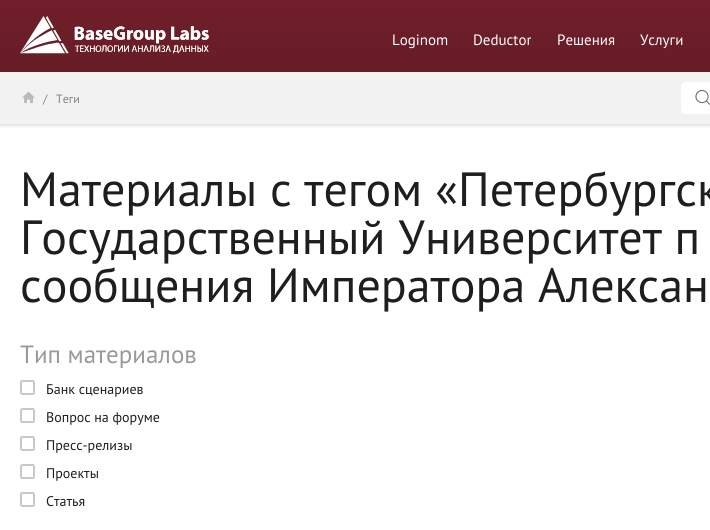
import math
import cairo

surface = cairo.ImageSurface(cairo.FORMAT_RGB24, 710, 530)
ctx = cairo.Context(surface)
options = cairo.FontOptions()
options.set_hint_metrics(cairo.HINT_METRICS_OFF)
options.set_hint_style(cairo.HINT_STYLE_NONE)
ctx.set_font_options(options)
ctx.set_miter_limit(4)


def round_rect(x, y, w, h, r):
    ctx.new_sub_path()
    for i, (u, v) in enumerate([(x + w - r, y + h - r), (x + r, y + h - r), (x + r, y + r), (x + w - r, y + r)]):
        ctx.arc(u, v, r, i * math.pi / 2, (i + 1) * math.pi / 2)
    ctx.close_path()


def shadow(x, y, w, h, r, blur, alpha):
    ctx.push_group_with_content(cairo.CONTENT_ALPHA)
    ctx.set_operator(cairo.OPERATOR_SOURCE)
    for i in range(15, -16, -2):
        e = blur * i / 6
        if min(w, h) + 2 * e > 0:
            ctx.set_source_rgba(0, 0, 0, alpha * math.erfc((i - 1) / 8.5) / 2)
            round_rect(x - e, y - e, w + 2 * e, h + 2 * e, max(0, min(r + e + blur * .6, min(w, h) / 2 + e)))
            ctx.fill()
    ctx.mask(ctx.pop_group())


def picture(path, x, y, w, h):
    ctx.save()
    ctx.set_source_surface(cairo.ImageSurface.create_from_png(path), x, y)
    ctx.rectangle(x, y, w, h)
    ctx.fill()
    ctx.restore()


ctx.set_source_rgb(1, 1, 1)
ctx.paint()
gradient = cairo.LinearGradient(490, 0, 490, 72)
gradient.add_color_stop_rgba(0, 0.443, 0.118, 0.165, 1)
gradient.add_color_stop_rgba(1, 0.4, 0.114, 0.149, 1)
ctx.set_source(gradient)
ctx.rectangle(0, 0, 710, 72)
ctx.fill()
picture("img1.png", 20, 16, 189, 38)
ctx.select_font_face("PT Sans")
ctx.set_font_size(15)
ctx.set_source_rgb(1, 1, 1)
ctx.move_to(392, 45)
ctx.show_text("Loginom")
ctx.move_to(473, 45)
ctx.show_text("Deductor")
ctx.move_to(557, 45)
ctx.show_text("Решения")
ctx.move_to(640, 45)
ctx.show_text("Услуги")
ctx.set_source_rgb(0, 0, 0)
shadow(0, 74, 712, 54, 0, 0.5, 0.04)
ctx.set_source_rgb(0.949, 0.949, 0.949)
ctx.rectangle(0, 72, 710, 52)
ctx.fill()
ctx.set_source_rgb(0.91, 0.91, 0.91)
ctx.rectangle(0, 124, 710, 2)
ctx.fill()
picture("img2.png", 22, 91, 13, 12)
ctx.set_font_size(12)
ctx.set_source_rgb(0.506, 0.506, 0.506)
ctx.move_to(43, 103)
ctx.show_text("/")
ctx.move_to(56, 103)
ctx.show_text("Теги")
ctx.set_source_rgb(1, 1, 1)
round_rect(681, 82, 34, 32, 5)
ctx.fill()
picture("img3.png", 695, 90, 15, 15)
ctx.set_font_size(48)
ctx.set_source_rgb(0.118, 0.118, 0.118)
ctx.move_to(20, 206)
ctx.show_text("Материалы с тегом «Петербургск")
ctx.move_to(20, 254)
ctx.show_text("Государственный Университет п")
ctx.move_to(20, 302)
ctx.show_text("сообщения Императора Алексан")
ctx.set_font_size(25)
ctx.set_source_rgb(0.6, 0.6, 0.6)
ctx.move_to(20, 363)
ctx.show_text("Тип материалов")
picture("img4.png", 20, 380, 15, 15)
ctx.set_font_size(14)
ctx.set_source_rgb(0.118, 0.118, 0.118)
ctx.move_to(46, 394)
ctx.show_text("Банк сценариев")
picture("img4.png", 20, 408, 15, 15)
ctx.move_to(46, 422)
ctx.show_text("Вопрос на форуме")
picture("img4.png", 20, 436, 15, 15)
ctx.move_to(46, 450)
ctx.show_text("Пресс-релизы")
picture("img4.png", 20, 464, 15, 15)
ctx.move_to(46, 478)
ctx.show_text("Проекты")
picture("img4.png", 20, 492, 15, 15)
ctx.move_to(46, 506)
ctx.show_text("Статья")
surface.write_to_png("page.png")
